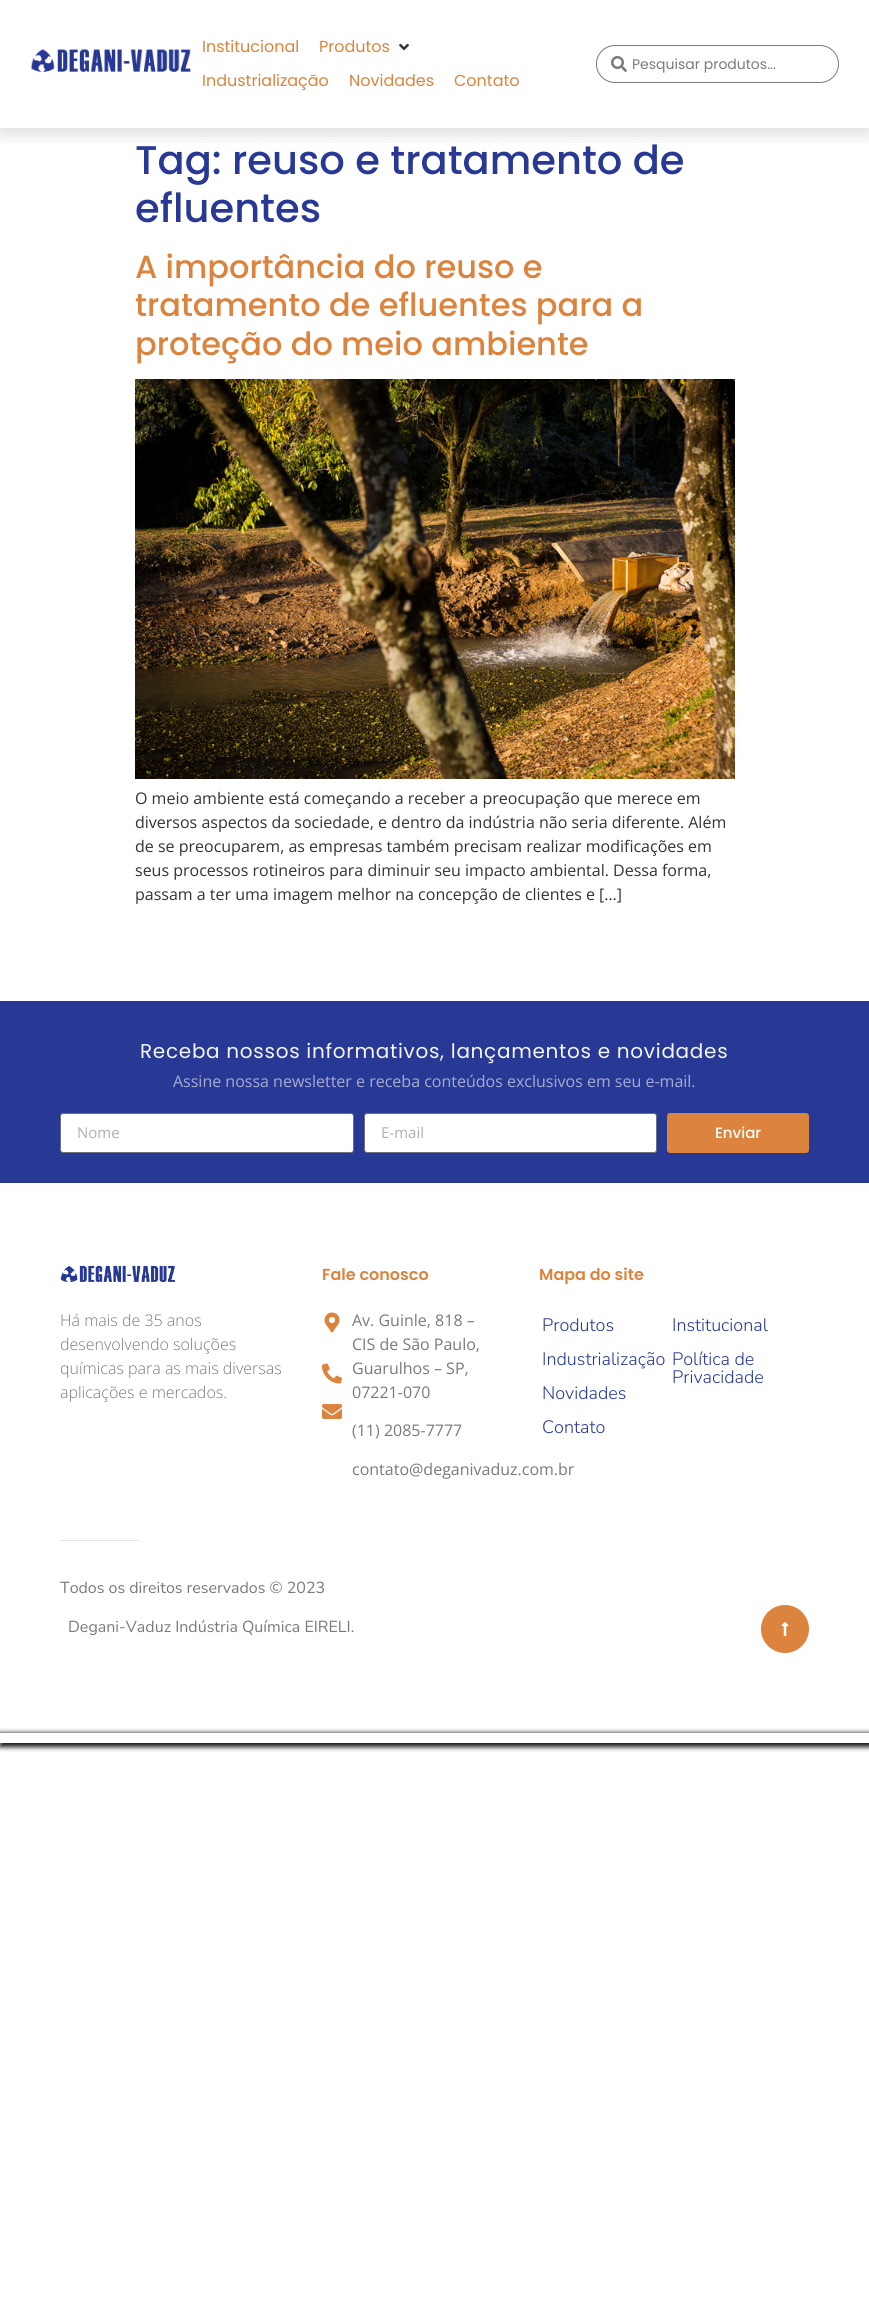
import math
import cairo

surface = cairo.ImageSurface(cairo.FORMAT_RGB24, 869, 2313)
ctx = cairo.Context(surface)
options = cairo.FontOptions()
options.set_hint_metrics(cairo.HINT_METRICS_OFF)
options.set_hint_style(cairo.HINT_STYLE_NONE)
ctx.set_font_options(options)
ctx.set_miter_limit(4)


def spaced_text(x, y, s, letter, word):
    ctx.move_to(x, y)
    for ch in s:
        ctx.show_text(ch)
        ctx.rel_move_to(letter + word * (ch == ' '), 0)


def round_rect(x, y, w, h, r):
    ctx.new_sub_path()
    for i, (u, v) in enumerate([(x + w - r, y + h - r), (x + r, y + h - r), (x + r, y + r), (x + w - r, y + r)]):
        ctx.arc(u, v, r, i * math.pi / 2, (i + 1) * math.pi / 2)
    ctx.close_path()


def shadow(x, y, w, h, r, blur, alpha):
    ctx.push_group_with_content(cairo.CONTENT_ALPHA)
    ctx.set_operator(cairo.OPERATOR_SOURCE)
    for i in range(15, -16, -2):
        e = blur * i / 6
        if min(w, h) + 2 * e > 0:
            ctx.set_source_rgba(0, 0, 0, alpha * math.erfc((i - 1) / 8.5) / 2)
            round_rect(x - e, y - e, w + 2 * e, h + 2 * e, max(0, min(r + e + blur * .6, min(w, h) / 2 + e)))
            ctx.fill()
    ctx.mask(ctx.pop_group())


def picture(path, x, y, w, h):
    ctx.save()
    ctx.set_source_surface(cairo.ImageSurface.create_from_png(path), x, y)
    ctx.rectangle(x, y, w, h)
    ctx.fill()
    ctx.restore()


ctx.set_source_rgb(1, 1, 1)
ctx.paint()
ctx.save()
ctx.rectangle(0, 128, 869, 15)
ctx.clip()
ctx.set_source_rgb(0, 0, 0)
shadow(0, 4, 869, 128, 0, 10, 0.16)
ctx.restore()
picture("img1.png", 31, 49, 160, 23)
ctx.select_font_face("Poppins")
ctx.set_font_size(16)
ctx.set_source_rgb(0.863, 0.514, 0.239)
ctx.move_to(202, 52)
ctx.show_text("Institucional")
ctx.move_to(319, 52)
ctx.show_text("Produtos")
picture("img2.png", 399, 43, 10, 8)
ctx.move_to(202, 86)
ctx.show_text("Industrialização")
ctx.move_to(349, 86)
ctx.show_text("Novidades")
ctx.move_to(454, 86)
ctx.show_text("Contato")
round_rect(596.5, 45.5, 242, 37, 18.5)
ctx.set_source_rgb(0.478, 0.478, 0.478)
ctx.set_line_width(1)
ctx.stroke()
picture("img3.png", 611, 56, 16, 16)
ctx.set_font_size(14)
ctx.move_to(632, 69)
ctx.show_text("Pesquisar produtos...")
ctx.select_font_face("Poppins Medium")
ctx.set_font_size(40)
ctx.set_source_rgb(0.157, 0.224, 0.584)
ctx.move_to(135, 174)
ctx.show_text("Tag: reuso e tratamento de")
ctx.move_to(135, 222)
ctx.show_text("efluentes")
ctx.set_font_size(32)
ctx.set_source_rgb(0.863, 0.514, 0.239)
ctx.move_to(135, 278)
ctx.show_text("A importância do reuso e")
ctx.move_to(135, 316)
ctx.show_text("tratamento de efluentes para a")
ctx.move_to(135, 355)
ctx.show_text("proteção do meio ambiente")
picture("img4.png", 135, 379, 600, 400)
ctx.select_font_face("Open Sans")
ctx.set_font_size(16)
ctx.set_source_rgb(0.2, 0.2, 0.2)
ctx.move_to(135, 804)
ctx.show_text("O meio ambiente está começando a receber a preocupação que merece em")
ctx.move_to(135, 828)
ctx.show_text("diversos aspectos da sociedade, e dentro da indústria não seria diferente. Além")
ctx.move_to(135, 852)
ctx.show_text("de se preocuparem, as empresas também precisam realizar modificações em")
ctx.move_to(135, 876)
ctx.show_text("seus processos rotineiros para diminuir seu impacto ambiental. Dessa forma,")
ctx.move_to(135, 900)
ctx.show_text("passam a ter uma imagem melhor na concepção de clientes e […]")
ctx.set_source_rgb(0.157, 0.224, 0.584)
ctx.rectangle(0, 1001, 869, 182)
ctx.fill()
ctx.select_font_face("Poppins")
ctx.set_font_size(20)
ctx.set_source_rgb(0.957, 0.961, 0.98)
spaced_text(140, 1058, "Receba nossos informativos, lançamentos e novidades", 0.7, 0)
ctx.select_font_face("Open Sans")
ctx.set_font_size(16)
ctx.set_source_rgb(0.647, 0.675, 0.824)
ctx.move_to(173, 1087)
ctx.show_text("Assine nossa newsletter e receba conteúdos exclusivos em seu e-mail.")
ctx.set_source_rgb(1, 1, 1)
round_rect(60.5, 1113.5, 293, 39, 2.5)
ctx.fill_preserve()
ctx.set_source_rgb(0.412, 0.447, 0.49)
ctx.stroke()
ctx.set_font_size(15)
ctx.set_source_rgb(0.686, 0.686, 0.686)
ctx.move_to(77, 1138)
ctx.show_text("Nome")
ctx.set_source_rgb(1, 1, 1)
round_rect(364.5, 1113.5, 292, 39, 2.5)
ctx.fill_preserve()
ctx.set_source_rgb(0.412, 0.447, 0.49)
ctx.stroke()
ctx.set_source_rgb(0.686, 0.686, 0.686)
ctx.move_to(381, 1138)
ctx.show_text("E-mail")
ctx.set_source_rgb(0.863, 0.514, 0.239)
round_rect(667, 1113, 142, 40, 3)
ctx.fill()
ctx.select_font_face("Poppins Medium")
ctx.set_source_rgb(1, 1, 1)
ctx.move_to(715, 1138)
ctx.show_text("Enviar")
picture("img5.png", 60, 1265, 115, 18)
ctx.select_font_face("Poppins SemiBold")
ctx.set_font_size(16)
ctx.set_source_rgb(0.863, 0.514, 0.239)
ctx.move_to(322, 1280)
ctx.show_text("Fale conosco")
ctx.move_to(539, 1280)
ctx.show_text("Mapa do site")
ctx.select_font_face("Open Sans Light")
ctx.set_source_rgb(0.478, 0.478, 0.478)
ctx.move_to(60, 1326)
ctx.show_text("Há mais de 35 anos")
ctx.move_to(60, 1350)
ctx.show_text("desenvolvendo soluções")
ctx.move_to(60, 1374)
ctx.show_text("químicas para as mais diversas")
ctx.move_to(60, 1398)
ctx.show_text("aplicações e mercados.")
picture("img6.png", 324, 1312, 16, 21)
picture("img7.png", 322, 1363, 20, 21)
picture("img8.png", 322, 1404, 20, 15)
ctx.select_font_face("Open Sans")
ctx.move_to(352, 1326)
ctx.show_text("Av. Guinle, 818 –")
ctx.move_to(352, 1350)
ctx.show_text("CIS de São Paulo,")
ctx.move_to(352, 1374)
ctx.show_text("Guarulhos – SP,")
ctx.move_to(352, 1398)
ctx.show_text("07221-070")
ctx.move_to(352, 1436)
ctx.show_text("(11) 2085-7777")
ctx.move_to(352, 1475)
ctx.show_text("contato@deganivaduz.com.br")
ctx.select_font_face("Nunito Light")
ctx.set_font_size(18)
ctx.set_source_rgb(0.157, 0.224, 0.584)
ctx.move_to(542, 1331)
ctx.show_text("Produtos")
ctx.move_to(542, 1365)
ctx.show_text("Industrialização")
ctx.move_to(542, 1399)
ctx.show_text("Novidades")
ctx.move_to(542, 1433)
ctx.show_text("Contato")
ctx.move_to(672, 1331)
ctx.show_text("Institucional")
ctx.move_to(672, 1365)
ctx.show_text("Política de")
ctx.move_to(672, 1383)
ctx.show_text("Privacidade")
ctx.set_source_rgb(0.882, 0.894, 0.929)
ctx.rectangle(60, 1540, 79, 1)
ctx.fill()
ctx.select_font_face("Nunito")
ctx.set_font_size(16)
ctx.set_source_rgb(0.478, 0.478, 0.478)
ctx.move_to(60, 1593)
ctx.show_text("Todos os direitos reservados © 2023")
ctx.move_to(68, 1632)
ctx.show_text("Degani-Vaduz Indústria Química EIRELI.")
ctx.set_source_rgb(0.863, 0.514, 0.239)
ctx.new_path()
ctx.arc(785, 1629, 24, 0, 2 * math.pi)
ctx.fill()
picture("img9.png", 781, 1622, 8, 14)
ctx.save()
ctx.set_fill_rule(cairo.FILL_RULE_EVEN_ODD)
ctx.new_path()
ctx.move_to(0, 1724)
ctx.line_to(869, 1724)
ctx.line_to(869, 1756)
ctx.line_to(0, 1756)
ctx.close_path()
ctx.move_to(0, 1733)
ctx.line_to(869, 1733)
ctx.line_to(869, 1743)
ctx.line_to(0, 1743)
ctx.close_path()
ctx.clip()
ctx.set_source_rgb(0.086, 0.086, 0.086)
shadow(0, 1733, 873, 14, 0, 2.5, 1)
ctx.restore()
surface.write_to_png("page.png")
